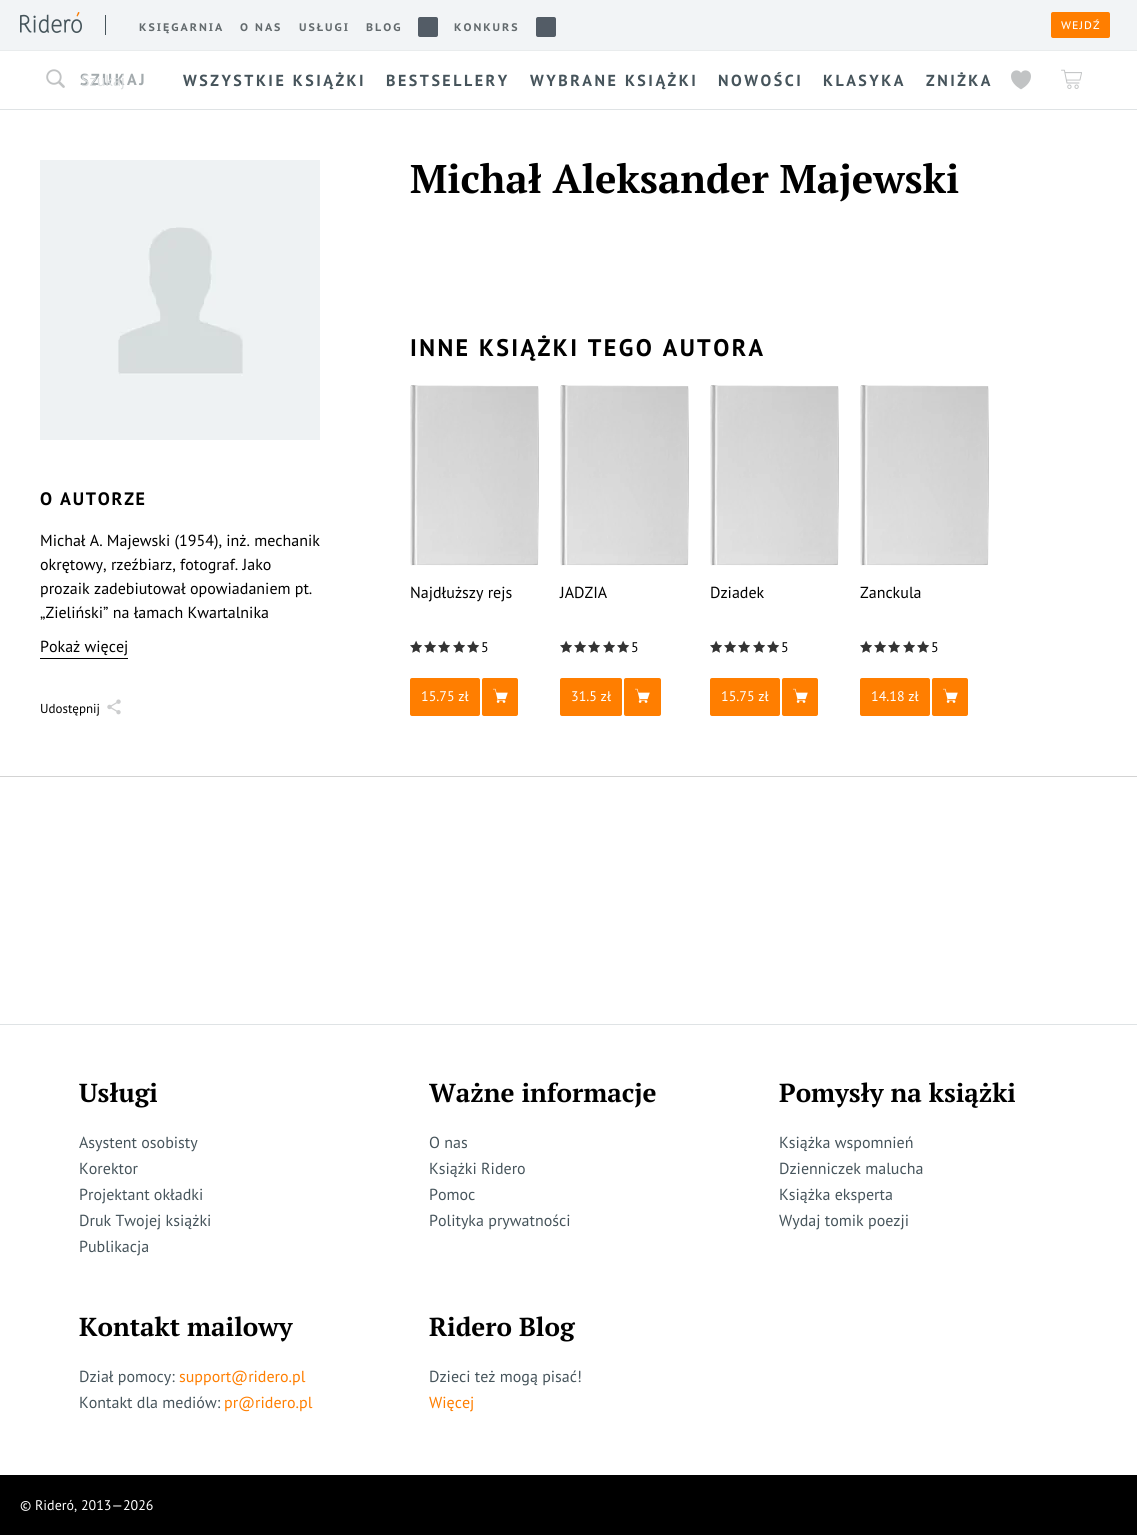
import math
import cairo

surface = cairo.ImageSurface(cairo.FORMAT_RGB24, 1137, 1535)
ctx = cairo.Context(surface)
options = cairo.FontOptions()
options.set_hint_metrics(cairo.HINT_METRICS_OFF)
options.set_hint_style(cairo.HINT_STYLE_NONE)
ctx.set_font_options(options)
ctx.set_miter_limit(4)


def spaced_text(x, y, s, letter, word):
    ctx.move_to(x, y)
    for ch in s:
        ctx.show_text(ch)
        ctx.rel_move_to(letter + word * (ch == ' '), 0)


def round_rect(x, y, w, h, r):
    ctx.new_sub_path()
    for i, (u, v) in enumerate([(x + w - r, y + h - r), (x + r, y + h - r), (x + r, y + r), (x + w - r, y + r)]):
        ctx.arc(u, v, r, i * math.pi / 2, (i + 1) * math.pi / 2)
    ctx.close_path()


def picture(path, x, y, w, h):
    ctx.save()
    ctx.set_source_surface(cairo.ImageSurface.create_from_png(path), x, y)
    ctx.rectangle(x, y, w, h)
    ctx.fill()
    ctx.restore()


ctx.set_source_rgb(1, 1, 1)
ctx.paint()
ctx.set_source_rgb(0.914, 0.925, 0.929)
ctx.rectangle(0, 50, 1137, 1)
ctx.fill()
ctx.set_source_rgb(0.949, 0.957, 0.961)
ctx.rectangle(0, 0, 1137, 50)
ctx.fill()
picture("img1.png", 20, 12, 62, 21)
ctx.set_source_rgb(0.275, 0.329, 0.357)
ctx.rectangle(105, 15, 1, 20)
ctx.fill()
ctx.select_font_face("PT Sans Caption", cairo.FONT_SLANT_NORMAL, cairo.FONT_WEIGHT_BOLD)
ctx.set_font_size(11)
ctx.set_source_rgb(0.388, 0.416, 0.427)
spaced_text(139, 31, "KSIĘGARNIA", 2, 0)
spaced_text(240, 31, "O NAS", 2, 0)
spaced_text(299, 31, "USŁUGI", 2, 0)
spaced_text(366, 31, "BLOG", 2, 0)
ctx.set_source_rgb(0.325, 0.361, 0.4)
round_rect(418, 17, 20, 20, 2)
ctx.fill()
ctx.set_source_rgb(0.388, 0.416, 0.427)
spaced_text(454, 31, "KONKURS", 2, 0)
ctx.set_source_rgb(0.325, 0.361, 0.4)
round_rect(536, 17, 20, 20, 2)
ctx.fill()
ctx.set_source_rgb(1, 0.494, 0)
round_rect(1051, 12, 59, 26, 2)
ctx.fill()
ctx.select_font_face("PT Sans Caption")
ctx.set_source_rgb(1, 1, 1)
spaced_text(1061, 29, "WEJDŹ", 1, 0)
ctx.set_source_rgb(0.875, 0.89, 0.898)
ctx.rectangle(0, 109, 1137, 1)
ctx.fill()
picture("img2.png", 46, 69, 19, 19)
ctx.select_font_face("PT Sans", cairo.FONT_SLANT_NORMAL, cairo.FONT_WEIGHT_BOLD)
ctx.set_font_size(16)
ctx.set_source_rgb(0.639, 0.667, 0.678)
spaced_text(80, 85, "SZUKAJ", 2.5, 0)
ctx.select_font_face("PT Sans")
ctx.set_source_rgb(0.863, 0.875, 0.878)
ctx.move_to(81, 86)
ctx.show_text("Szukaj")
ctx.select_font_face("PT Sans", cairo.FONT_SLANT_NORMAL, cairo.FONT_WEIGHT_BOLD)
ctx.set_source_rgb(0.275, 0.329, 0.357)
spaced_text(183, 86, "WSZYSTKIE KSIĄŻKI", 2.5, 0)
spaced_text(386, 86, "BESTSELLERY", 2.5, 0)
spaced_text(530, 86, "WYBRANE KSIĄŻKI", 2.5, 0)
spaced_text(718, 86, "NOWOŚCI", 2.5, 0)
spaced_text(823, 86, "KLASYKA", 2.5, 0)
spaced_text(926, 86, "ZNIŻKA", 2.5, 0)
picture("img3.png", 1011, 70, 20, 20)
picture("img4.png", 1061, 69, 21, 20)
ctx.set_source_rgb(0.827, 0.827, 0.827)
ctx.rectangle(0, 776, 1137, 1)
ctx.fill()
ctx.set_source_rgb(0.933, 0.949, 0.953)
ctx.rectangle(40, 160, 280, 280)
ctx.fill()
picture("img5.png", 118, 227, 125, 149)
ctx.set_font_size(18)
ctx.set_source_rgb(0, 0, 0)
spaced_text(40, 505, "O AUTORZE", 1.75, 0)
ctx.select_font_face("PT Sans")
ctx.set_font_size(16)
ctx.move_to(40, 546)
ctx.show_text("Michał A. Majewski (1954), inż. mechanik")
ctx.move_to(40, 570)
ctx.show_text("okrętowy, rzeźbiarz, fotograf. Jako")
ctx.move_to(40, 594)
ctx.show_text("prozaik zadebiutował opowiadaniem pt.")
ctx.move_to(40, 618)
ctx.show_text("„Zieliński” na łamach Kwartalnika")
ctx.rectangle(40, 658, 88, 1)
ctx.fill()
ctx.move_to(40, 652)
ctx.show_text("Pokaż więcej")
ctx.set_font_size(13)
ctx.move_to(40, 713)
ctx.show_text("Udostępnij")
picture("img6.png", 107, 699, 14, 16)
ctx.select_font_face("PT Serif", cairo.FONT_SLANT_NORMAL, cairo.FONT_WEIGHT_BOLD)
ctx.set_font_size(40)
ctx.move_to(410, 193)
ctx.show_text("Michał Aleksander Majewski")
ctx.select_font_face("PT Sans", cairo.FONT_SLANT_NORMAL, cairo.FONT_WEIGHT_BOLD)
ctx.set_font_size(24)
spaced_text(410, 356, "INNE KSIĄŻKI TEGO AUTORA", 2.4, 0)
picture("img7.png", 410, 385, 129, 181)
ctx.select_font_face("PT Sans")
ctx.set_font_size(16)
ctx.move_to(410, 598)
ctx.show_text("Najdłuższy rejs")
picture("img9.png", 410, 641, 12, 12)
picture("img8.png", 410, 640, 13, 13)
picture("img9.png", 424, 641, 12, 12)
picture("img8.png", 424, 640, 13, 13)
picture("img9.png", 438, 641, 12, 12)
picture("img8.png", 438, 640, 13, 13)
picture("img9.png", 453, 641, 12, 12)
picture("img8.png", 453, 640, 13, 13)
picture("img9.png", 467, 641, 12, 12)
picture("img8.png", 467, 640, 13, 13)
ctx.set_font_size(14)
ctx.move_to(481, 652)
ctx.show_text("5")
ctx.set_source_rgb(1, 0.494, 0)
round_rect(410, 678, 70, 38, 2)
ctx.fill()
ctx.set_source_rgb(1, 1, 1)
ctx.move_to(421, 701)
ctx.show_text("15.75 zł")
ctx.set_source_rgb(1, 0.494, 0)
round_rect(482, 678, 36, 38, 2)
ctx.fill()
picture("img10.png", 493, 688, 15, 15)
picture("img11.png", 560, 385, 129, 181)
ctx.set_font_size(16)
ctx.set_source_rgb(0, 0, 0)
ctx.move_to(560, 598)
ctx.show_text("JADZIA")
picture("img9.png", 560, 641, 12, 12)
picture("img8.png", 560, 640, 13, 13)
picture("img9.png", 574, 641, 12, 12)
picture("img8.png", 574, 640, 13, 13)
picture("img9.png", 588, 641, 12, 12)
picture("img8.png", 588, 640, 13, 13)
picture("img9.png", 603, 641, 12, 12)
picture("img8.png", 603, 640, 13, 13)
picture("img9.png", 617, 641, 12, 12)
picture("img8.png", 617, 640, 13, 13)
ctx.set_font_size(14)
ctx.move_to(631, 652)
ctx.show_text("5")
ctx.set_source_rgb(1, 0.494, 0)
round_rect(560, 678, 62, 38, 2)
ctx.fill()
ctx.set_source_rgb(1, 1, 1)
ctx.move_to(571, 701)
ctx.show_text("31.5 zł")
ctx.set_source_rgb(1, 0.494, 0)
round_rect(624, 678, 37, 38, 2)
ctx.fill()
picture("img10.png", 635, 688, 15, 15)
picture("img7.png", 710, 385, 129, 181)
ctx.set_font_size(16)
ctx.set_source_rgb(0, 0, 0)
ctx.move_to(710, 598)
ctx.show_text("Dziadek")
picture("img9.png", 710, 641, 12, 12)
picture("img8.png", 710, 640, 13, 13)
picture("img9.png", 724, 641, 12, 12)
picture("img8.png", 724, 640, 13, 13)
picture("img9.png", 738, 641, 12, 12)
picture("img8.png", 738, 640, 13, 13)
picture("img9.png", 753, 641, 12, 12)
picture("img8.png", 753, 640, 13, 13)
picture("img9.png", 767, 641, 12, 12)
picture("img8.png", 767, 640, 13, 13)
ctx.set_font_size(14)
ctx.move_to(781, 652)
ctx.show_text("5")
ctx.set_source_rgb(1, 0.494, 0)
round_rect(710, 678, 70, 38, 2)
ctx.fill()
ctx.set_source_rgb(1, 1, 1)
ctx.move_to(721, 701)
ctx.show_text("15.75 zł")
ctx.set_source_rgb(1, 0.494, 0)
round_rect(782, 678, 36, 38, 2)
ctx.fill()
picture("img10.png", 793, 688, 15, 15)
picture("img11.png", 860, 385, 129, 181)
ctx.set_font_size(16)
ctx.set_source_rgb(0, 0, 0)
ctx.move_to(860, 598)
ctx.show_text("Zanckula")
picture("img9.png", 860, 641, 12, 12)
picture("img8.png", 860, 640, 13, 13)
picture("img9.png", 874, 641, 12, 12)
picture("img8.png", 874, 640, 13, 13)
picture("img9.png", 888, 641, 12, 12)
picture("img8.png", 888, 640, 13, 13)
picture("img9.png", 903, 641, 12, 12)
picture("img8.png", 903, 640, 13, 13)
picture("img9.png", 917, 641, 12, 12)
picture("img8.png", 917, 640, 13, 13)
ctx.set_font_size(14)
ctx.move_to(931, 652)
ctx.show_text("5")
ctx.set_source_rgb(1, 0.494, 0)
round_rect(860, 678, 70, 38, 2)
ctx.fill()
ctx.set_source_rgb(1, 1, 1)
ctx.move_to(871, 701)
ctx.show_text("14.18 zł")
ctx.set_source_rgb(1, 0.494, 0)
round_rect(932, 678, 36, 38, 2)
ctx.fill()
picture("img10.png", 943, 688, 15, 15)
ctx.set_source_rgb(0.875, 0.89, 0.898)
ctx.rectangle(0, 1024, 1137, 1)
ctx.fill()
ctx.select_font_face("PT Serif", cairo.FONT_SLANT_NORMAL, cairo.FONT_WEIGHT_BOLD)
ctx.set_font_size(26)
ctx.set_source_rgb(0, 0, 0)
ctx.move_to(79, 1102)
ctx.show_text("Usługi")
ctx.select_font_face("PT Sans")
ctx.set_font_size(16)
ctx.set_source_rgb(0.275, 0.329, 0.357)
ctx.move_to(79, 1148)
ctx.show_text("Asystent osobisty")
ctx.move_to(79, 1174)
ctx.show_text("Korektor")
ctx.move_to(79, 1200)
ctx.show_text("Projektant okładki")
ctx.move_to(79, 1226)
ctx.show_text("Druk Twojej książki")
ctx.move_to(79, 1252)
ctx.show_text("Publikacja")
ctx.select_font_face("PT Serif", cairo.FONT_SLANT_NORMAL, cairo.FONT_WEIGHT_BOLD)
ctx.set_font_size(26)
ctx.set_source_rgb(0, 0, 0)
ctx.move_to(429, 1102)
ctx.show_text("Ważne informacje")
ctx.select_font_face("PT Sans")
ctx.set_font_size(16)
ctx.set_source_rgb(0.275, 0.329, 0.357)
ctx.move_to(429, 1148)
ctx.show_text("O nas")
ctx.move_to(429, 1174)
ctx.show_text("Książki Ridero")
ctx.move_to(429, 1200)
ctx.show_text("Pomoc")
ctx.move_to(429, 1226)
ctx.show_text("Polityka prywatności")
ctx.select_font_face("PT Serif", cairo.FONT_SLANT_NORMAL, cairo.FONT_WEIGHT_BOLD)
ctx.set_font_size(26)
ctx.set_source_rgb(0, 0, 0)
ctx.move_to(779, 1102)
ctx.show_text("Pomysły na książki")
ctx.select_font_face("PT Sans")
ctx.set_font_size(16)
ctx.set_source_rgb(0.275, 0.329, 0.357)
ctx.move_to(779, 1148)
ctx.show_text("Książka wspomnień")
ctx.move_to(779, 1174)
ctx.show_text("Dzienniczek malucha")
ctx.move_to(779, 1200)
ctx.show_text("Książka eksperta")
ctx.move_to(779, 1226)
ctx.show_text("Wydaj tomik poezji")
ctx.select_font_face("PT Serif", cairo.FONT_SLANT_NORMAL, cairo.FONT_WEIGHT_BOLD)
ctx.set_font_size(26)
ctx.set_source_rgb(0, 0, 0)
ctx.move_to(79, 1336)
ctx.show_text("Kontakt mailowy")
ctx.select_font_face("PT Sans")
ctx.set_font_size(16)
ctx.set_source_rgb(0.275, 0.329, 0.357)
ctx.move_to(79, 1382)
ctx.show_text("Dział pomocy:")
ctx.set_source_rgb(1, 0.494, 0)
ctx.move_to(179, 1382)
ctx.show_text("support@ridero.pl")
ctx.set_source_rgb(0.275, 0.329, 0.357)
ctx.move_to(79, 1408)
ctx.show_text("Kontakt dla mediów:")
ctx.set_source_rgb(1, 0.494, 0)
ctx.move_to(224, 1408)
ctx.show_text("pr@ridero.pl")
ctx.select_font_face("PT Serif", cairo.FONT_SLANT_NORMAL, cairo.FONT_WEIGHT_BOLD)
ctx.set_font_size(26)
ctx.set_source_rgb(0, 0, 0)
ctx.move_to(429, 1336)
ctx.show_text("Ridero Blog")
ctx.select_font_face("PT Sans")
ctx.set_font_size(16)
ctx.set_source_rgb(0.275, 0.329, 0.357)
ctx.move_to(429, 1382)
ctx.show_text("Dzieci też mogą pisać!")
ctx.set_source_rgb(1, 0.494, 0)
ctx.move_to(429, 1408)
ctx.show_text("Więcej")
ctx.set_source_rgb(0, 0, 0)
ctx.rectangle(0, 1475, 1137, 60)
ctx.fill()
ctx.set_font_size(14)
ctx.set_source_rgb(1, 1, 1)
ctx.move_to(20, 1510)
ctx.show_text("© Rideró, 2013—2026")
surface.write_to_png("page.png")
